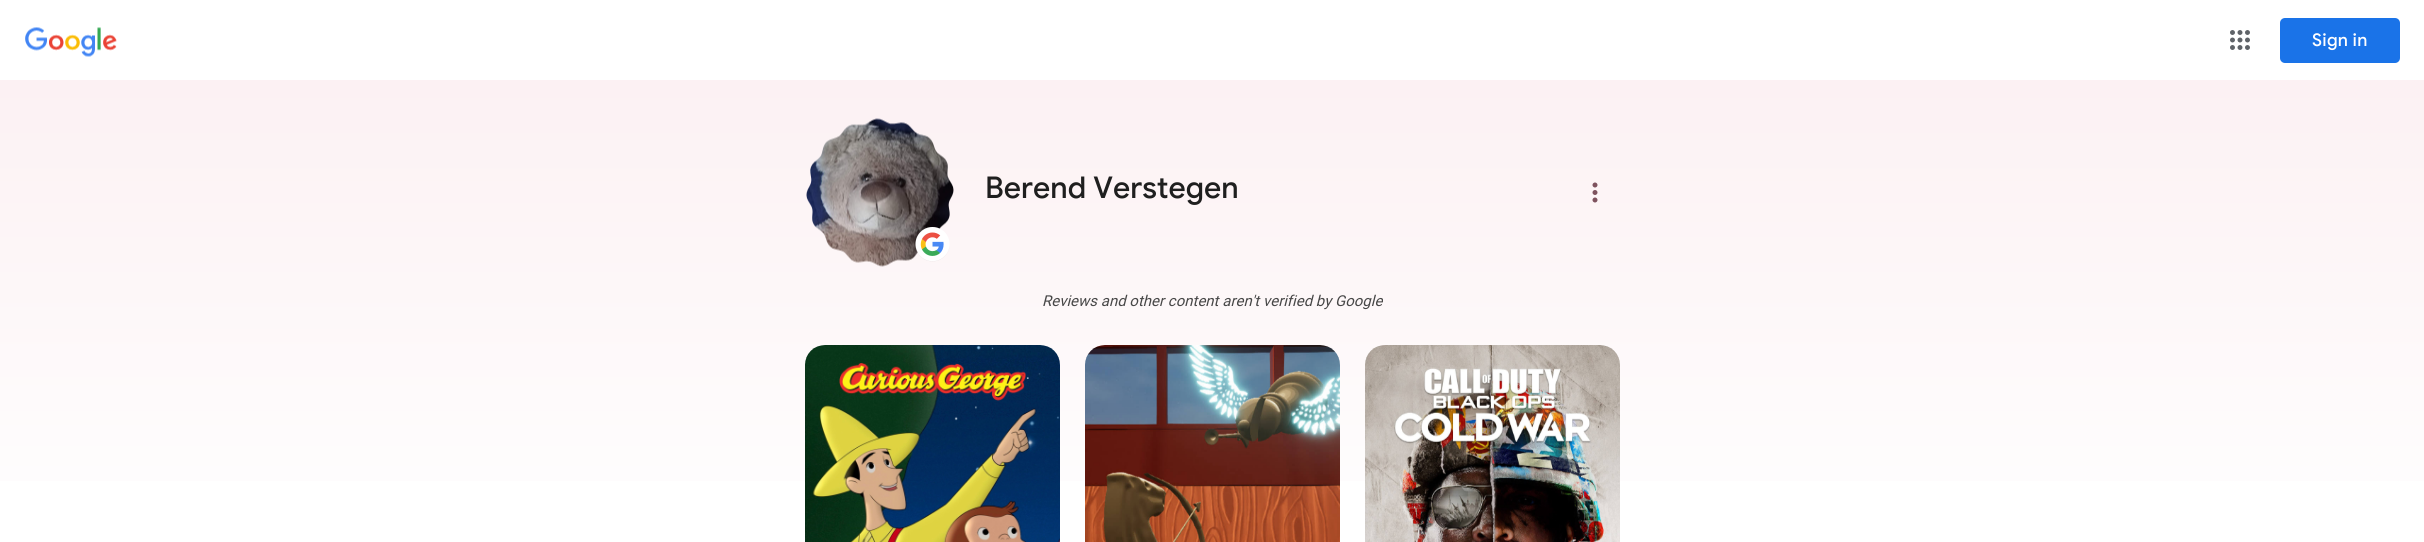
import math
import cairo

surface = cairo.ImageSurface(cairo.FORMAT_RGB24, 2424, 542)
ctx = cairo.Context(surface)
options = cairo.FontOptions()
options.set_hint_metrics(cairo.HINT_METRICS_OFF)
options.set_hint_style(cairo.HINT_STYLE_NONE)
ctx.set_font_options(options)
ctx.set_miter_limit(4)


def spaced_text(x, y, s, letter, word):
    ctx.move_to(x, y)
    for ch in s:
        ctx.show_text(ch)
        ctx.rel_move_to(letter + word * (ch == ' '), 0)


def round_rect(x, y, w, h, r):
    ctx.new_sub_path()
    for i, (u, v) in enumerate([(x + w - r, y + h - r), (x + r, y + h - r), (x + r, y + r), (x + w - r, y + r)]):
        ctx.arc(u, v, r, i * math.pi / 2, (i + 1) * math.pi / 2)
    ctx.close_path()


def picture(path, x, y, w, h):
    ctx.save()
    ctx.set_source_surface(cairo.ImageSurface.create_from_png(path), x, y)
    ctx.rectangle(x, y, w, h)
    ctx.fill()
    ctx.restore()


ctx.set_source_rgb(1, 1, 1)
ctx.paint()
picture("img1.png", 25, 27, 92, 30)
picture("img2.png", 2230, 30, 20, 20)
ctx.set_source_rgb(0.102, 0.451, 0.91)
round_rect(2280, 18, 120, 45, 5)
ctx.fill()
ctx.select_font_face("Google Sans Medium")
ctx.set_font_size(17.5)
ctx.set_source_rgb(1, 1, 1)
spaced_text(2312, 46, "Sign in", 0.25, 0)
gradient = cairo.LinearGradient(1213, 80, 1213, 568)
gradient.add_color_stop_rgba(0, 0.988, 0.945, 0.953, 1)
gradient.add_color_stop_rgba(1, 1, 1, 1, 1)
ctx.set_source(gradient)
ctx.rectangle(0, 80, 2424, 401)
ctx.fill()
picture("img3.png", 806, 118, 148, 149)
picture("img4.png", 915, 227, 35, 35)
ctx.set_font_size(30)
ctx.set_source_rgb(0.122, 0.122, 0.122)
ctx.move_to(985, 198)
ctx.show_text("Berend Verstegen")
picture("img5.png", 1592, 182, 6, 21)
ctx.select_font_face("Roboto", cairo.FONT_SLANT_ITALIC)
ctx.set_font_size(15)
ctx.set_source_rgb(0.278, 0.278, 0.278)
ctx.move_to(1042, 306)
ctx.show_text("Reviews and other content aren't verified by Google")
ctx.set_source_rgb(0.969, 0.973, 0.976)
round_rect(805, 345, 255, 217, 20)
ctx.fill()
picture("img6.png", 805, 345, 255, 197)
round_rect(1085, 345, 255, 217, 20)
ctx.fill()
picture("img7.png", 1085, 345, 255, 197)
round_rect(1365, 345, 255, 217, 20)
ctx.fill()
picture("img8.png", 1365, 345, 255, 197)
surface.write_to_png("page.png")
